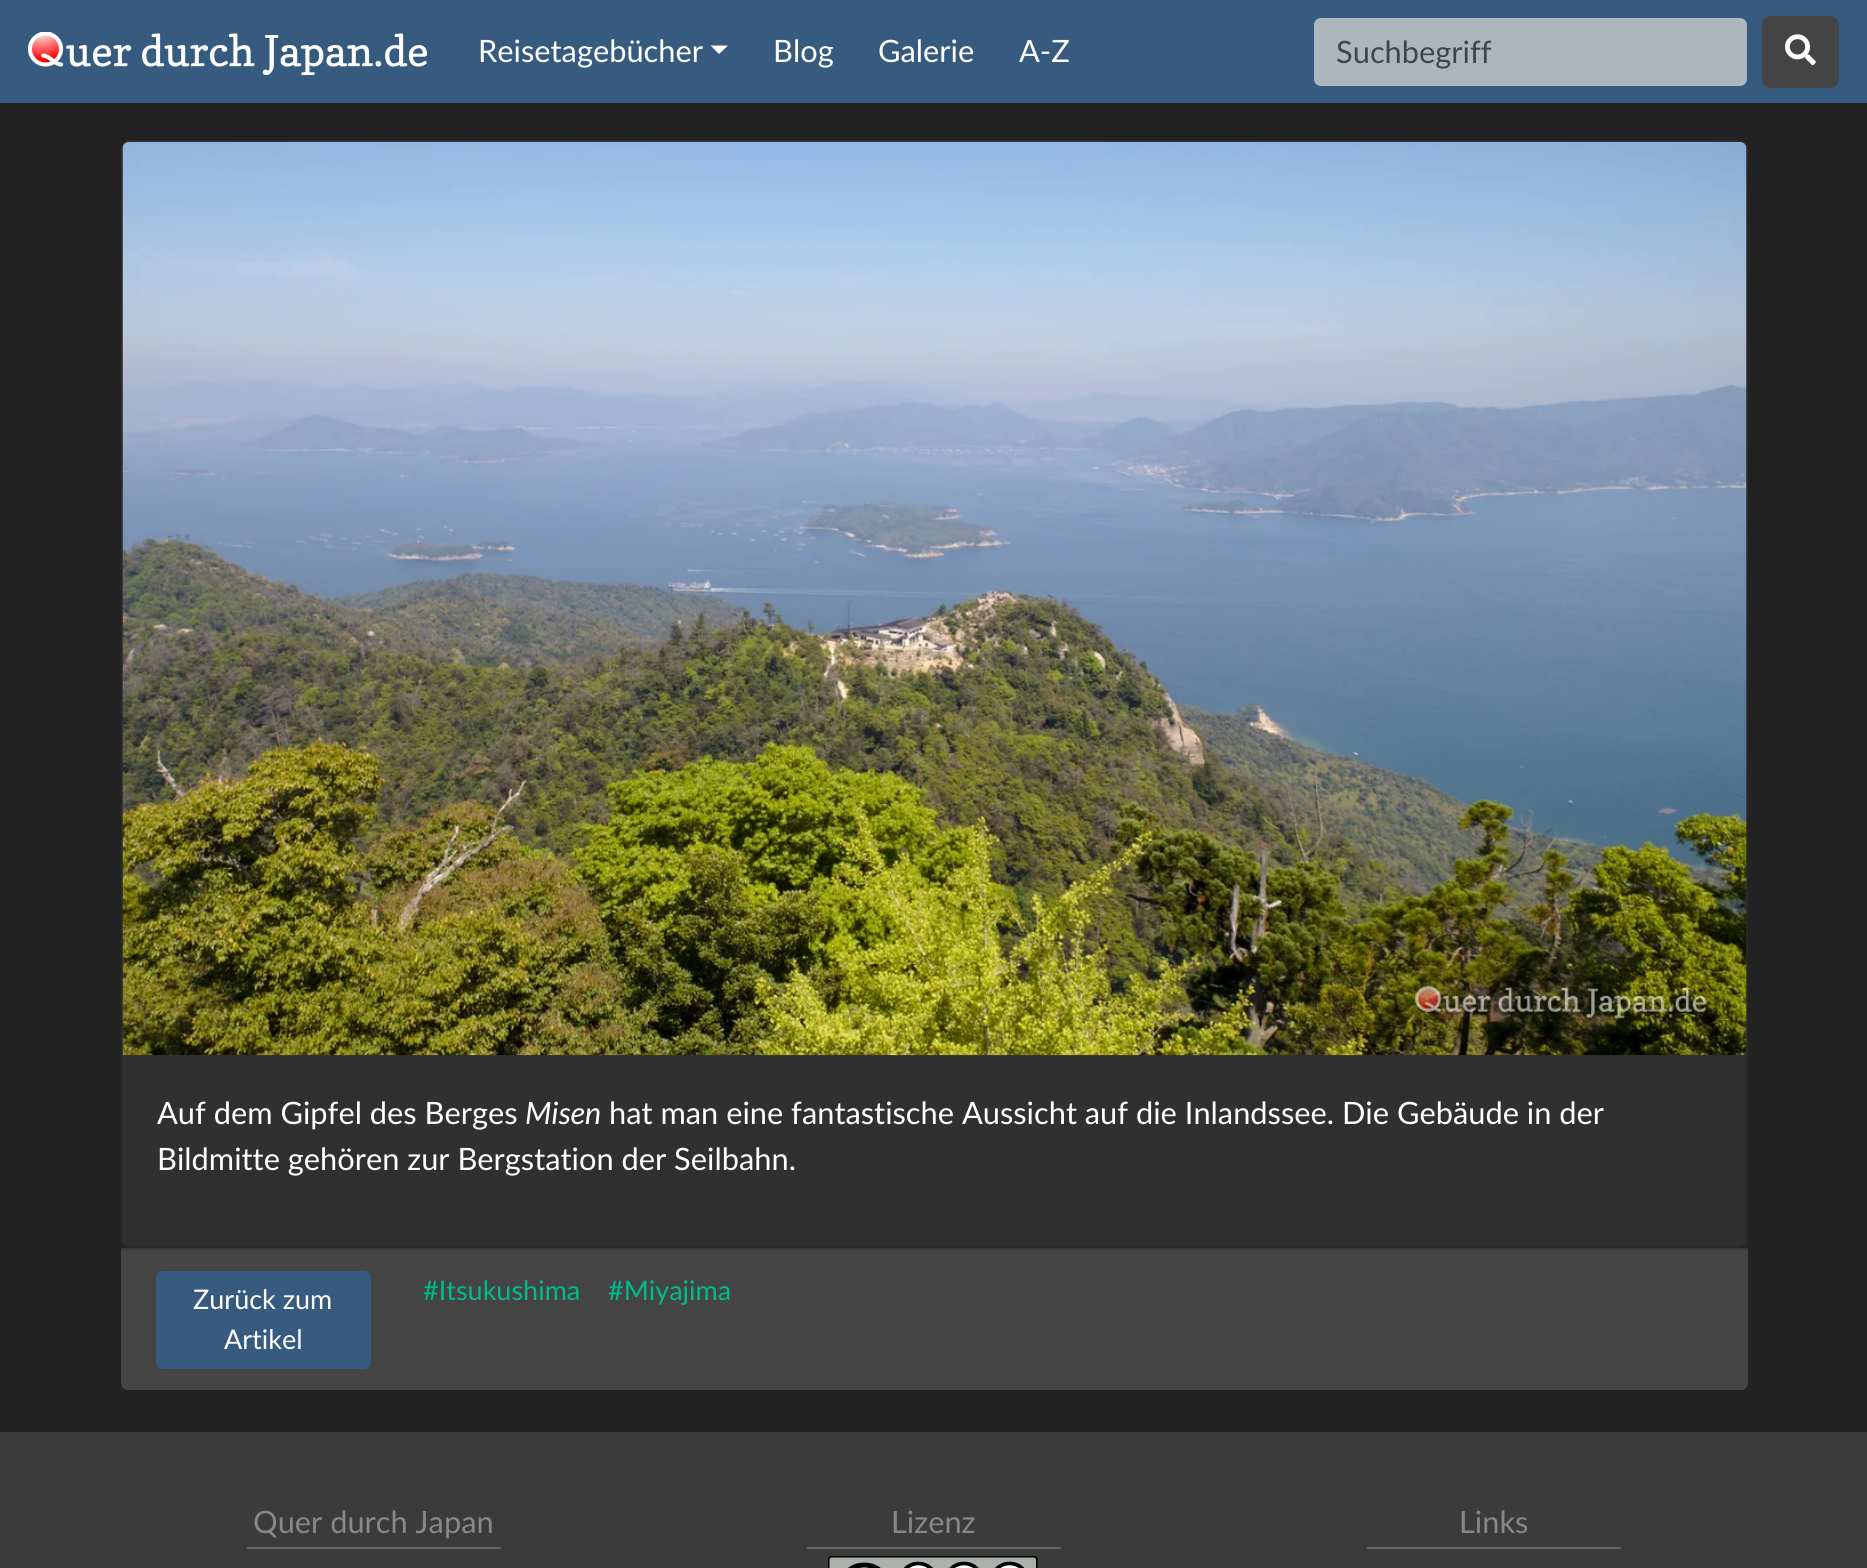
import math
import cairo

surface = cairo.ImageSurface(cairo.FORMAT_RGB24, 1867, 1568)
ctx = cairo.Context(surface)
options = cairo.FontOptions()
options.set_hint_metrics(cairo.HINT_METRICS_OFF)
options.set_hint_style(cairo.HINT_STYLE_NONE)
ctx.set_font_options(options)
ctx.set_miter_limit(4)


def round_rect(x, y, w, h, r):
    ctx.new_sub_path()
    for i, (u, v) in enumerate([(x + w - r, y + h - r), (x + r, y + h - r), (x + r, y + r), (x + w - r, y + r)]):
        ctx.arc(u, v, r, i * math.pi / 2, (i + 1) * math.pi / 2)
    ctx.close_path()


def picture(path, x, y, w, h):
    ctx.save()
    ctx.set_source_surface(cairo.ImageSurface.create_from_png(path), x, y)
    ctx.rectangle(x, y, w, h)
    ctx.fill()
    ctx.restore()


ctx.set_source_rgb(0.133, 0.133, 0.133)
ctx.paint()
ctx.set_source_rgb(0.216, 0.353, 0.498)
ctx.rectangle(0, 0, 1867, 103)
ctx.fill()
picture("img1.png", 28, 32, 399, 43)
ctx.select_font_face("Lato")
ctx.set_font_size(30.8)
ctx.set_source_rgb(1, 1, 1)
ctx.move_to(478, 62)
ctx.show_text("Reisetagebücher")
ctx.new_path()
ctx.move_to(710.5, 45.5)
ctx.line_to(728, 45.5)
ctx.line_to(719, 54)
ctx.close_path()
ctx.fill()
ctx.move_to(773, 62)
ctx.show_text("Blog")
ctx.move_to(878, 62)
ctx.show_text("Galerie")
ctx.move_to(1019, 62)
ctx.show_text("A-Z")
ctx.set_source_rgb(0.678, 0.71, 0.741)
round_rect(1314, 18, 433, 68, 7)
ctx.fill()
ctx.set_source_rgb(0.267, 0.267, 0.267)
ctx.move_to(1336, 63)
ctx.show_text("Suchbegriff")
round_rect(1763, 17, 75, 70, 8)
ctx.fill_preserve()
ctx.stroke()
picture("img2.png", 1785, 34, 31, 32)
ctx.set_source_rgb(0.188, 0.188, 0.188)
round_rect(121, 140, 1627, 1108, 9)
ctx.fill()
round_rect(122, 141, 1625, 1106, 8)
ctx.set_source_rgba(0, 0, 0, 0.12)
ctx.stroke()
picture("img3.png", 122, 141, 1625, 915)
ctx.set_source_rgb(1, 1, 1)
ctx.move_to(157, 1124)
ctx.show_text("Auf dem Gipfel des Berges")
ctx.select_font_face("Lato", cairo.FONT_SLANT_ITALIC)
ctx.move_to(525, 1124)
ctx.show_text("Misen")
ctx.select_font_face("Lato")
ctx.move_to(609, 1124)
ctx.show_text("hat man eine fantastische Aussicht auf die Inlandssee. Die Gebäude in der")
ctx.move_to(157, 1170)
ctx.show_text("Bildmitte gehören zur Bergstation der Seilbahn.")
ctx.set_source_rgb(0.267, 0.267, 0.267)
ctx.new_path()
ctx.move_to(121, 1248)
ctx.line_to(1748, 1248)
ctx.line_to(1748, 1383)
ctx.curve_to(1748, 1387, 1745, 1390, 1741, 1390)
ctx.line_to(128, 1390)
ctx.curve_to(124, 1390, 121, 1387, 121, 1383)
ctx.close_path()
ctx.fill()
ctx.set_source_rgb(0.235, 0.235, 0.235)
ctx.rectangle(121, 1248, 1627, 2)
ctx.fill()
ctx.set_source_rgb(0.216, 0.353, 0.498)
round_rect(157, 1272, 213, 96, 6)
ctx.fill_preserve()
ctx.stroke()
ctx.set_font_size(27)
ctx.set_source_rgb(1, 1, 1)
ctx.move_to(193, 1309)
ctx.show_text("Zurück zum")
ctx.move_to(224, 1349)
ctx.show_text("Artikel")
ctx.set_source_rgb(0, 0.737, 0.549)
ctx.move_to(423, 1300)
ctx.show_text("#Itsukushima")
ctx.move_to(608, 1300)
ctx.show_text("#Miyajima")
ctx.set_source_rgb(0.231, 0.231, 0.231)
ctx.rectangle(0, 1432, 1867, 136)
ctx.fill()
ctx.set_source_rgb(0.4, 0.4, 0.4)
ctx.rectangle(247, 1547, 254, 2)
ctx.fill()
ctx.set_font_size(30.8)
ctx.set_source_rgb(0.533, 0.533, 0.533)
ctx.move_to(253, 1533)
ctx.show_text("Quer durch Japan")
ctx.set_source_rgb(0.4, 0.4, 0.4)
ctx.rectangle(807, 1547, 254, 2)
ctx.fill()
ctx.set_source_rgb(0.533, 0.533, 0.533)
ctx.move_to(891, 1533)
ctx.show_text("Lizenz")
picture("img4.png", 828, 1556, 210, 12)
ctx.set_source_rgb(0.4, 0.4, 0.4)
ctx.rectangle(1367, 1547, 254, 2)
ctx.fill()
ctx.set_source_rgb(0.533, 0.533, 0.533)
ctx.move_to(1459, 1533)
ctx.show_text("Links")
surface.write_to_png("page.png")
